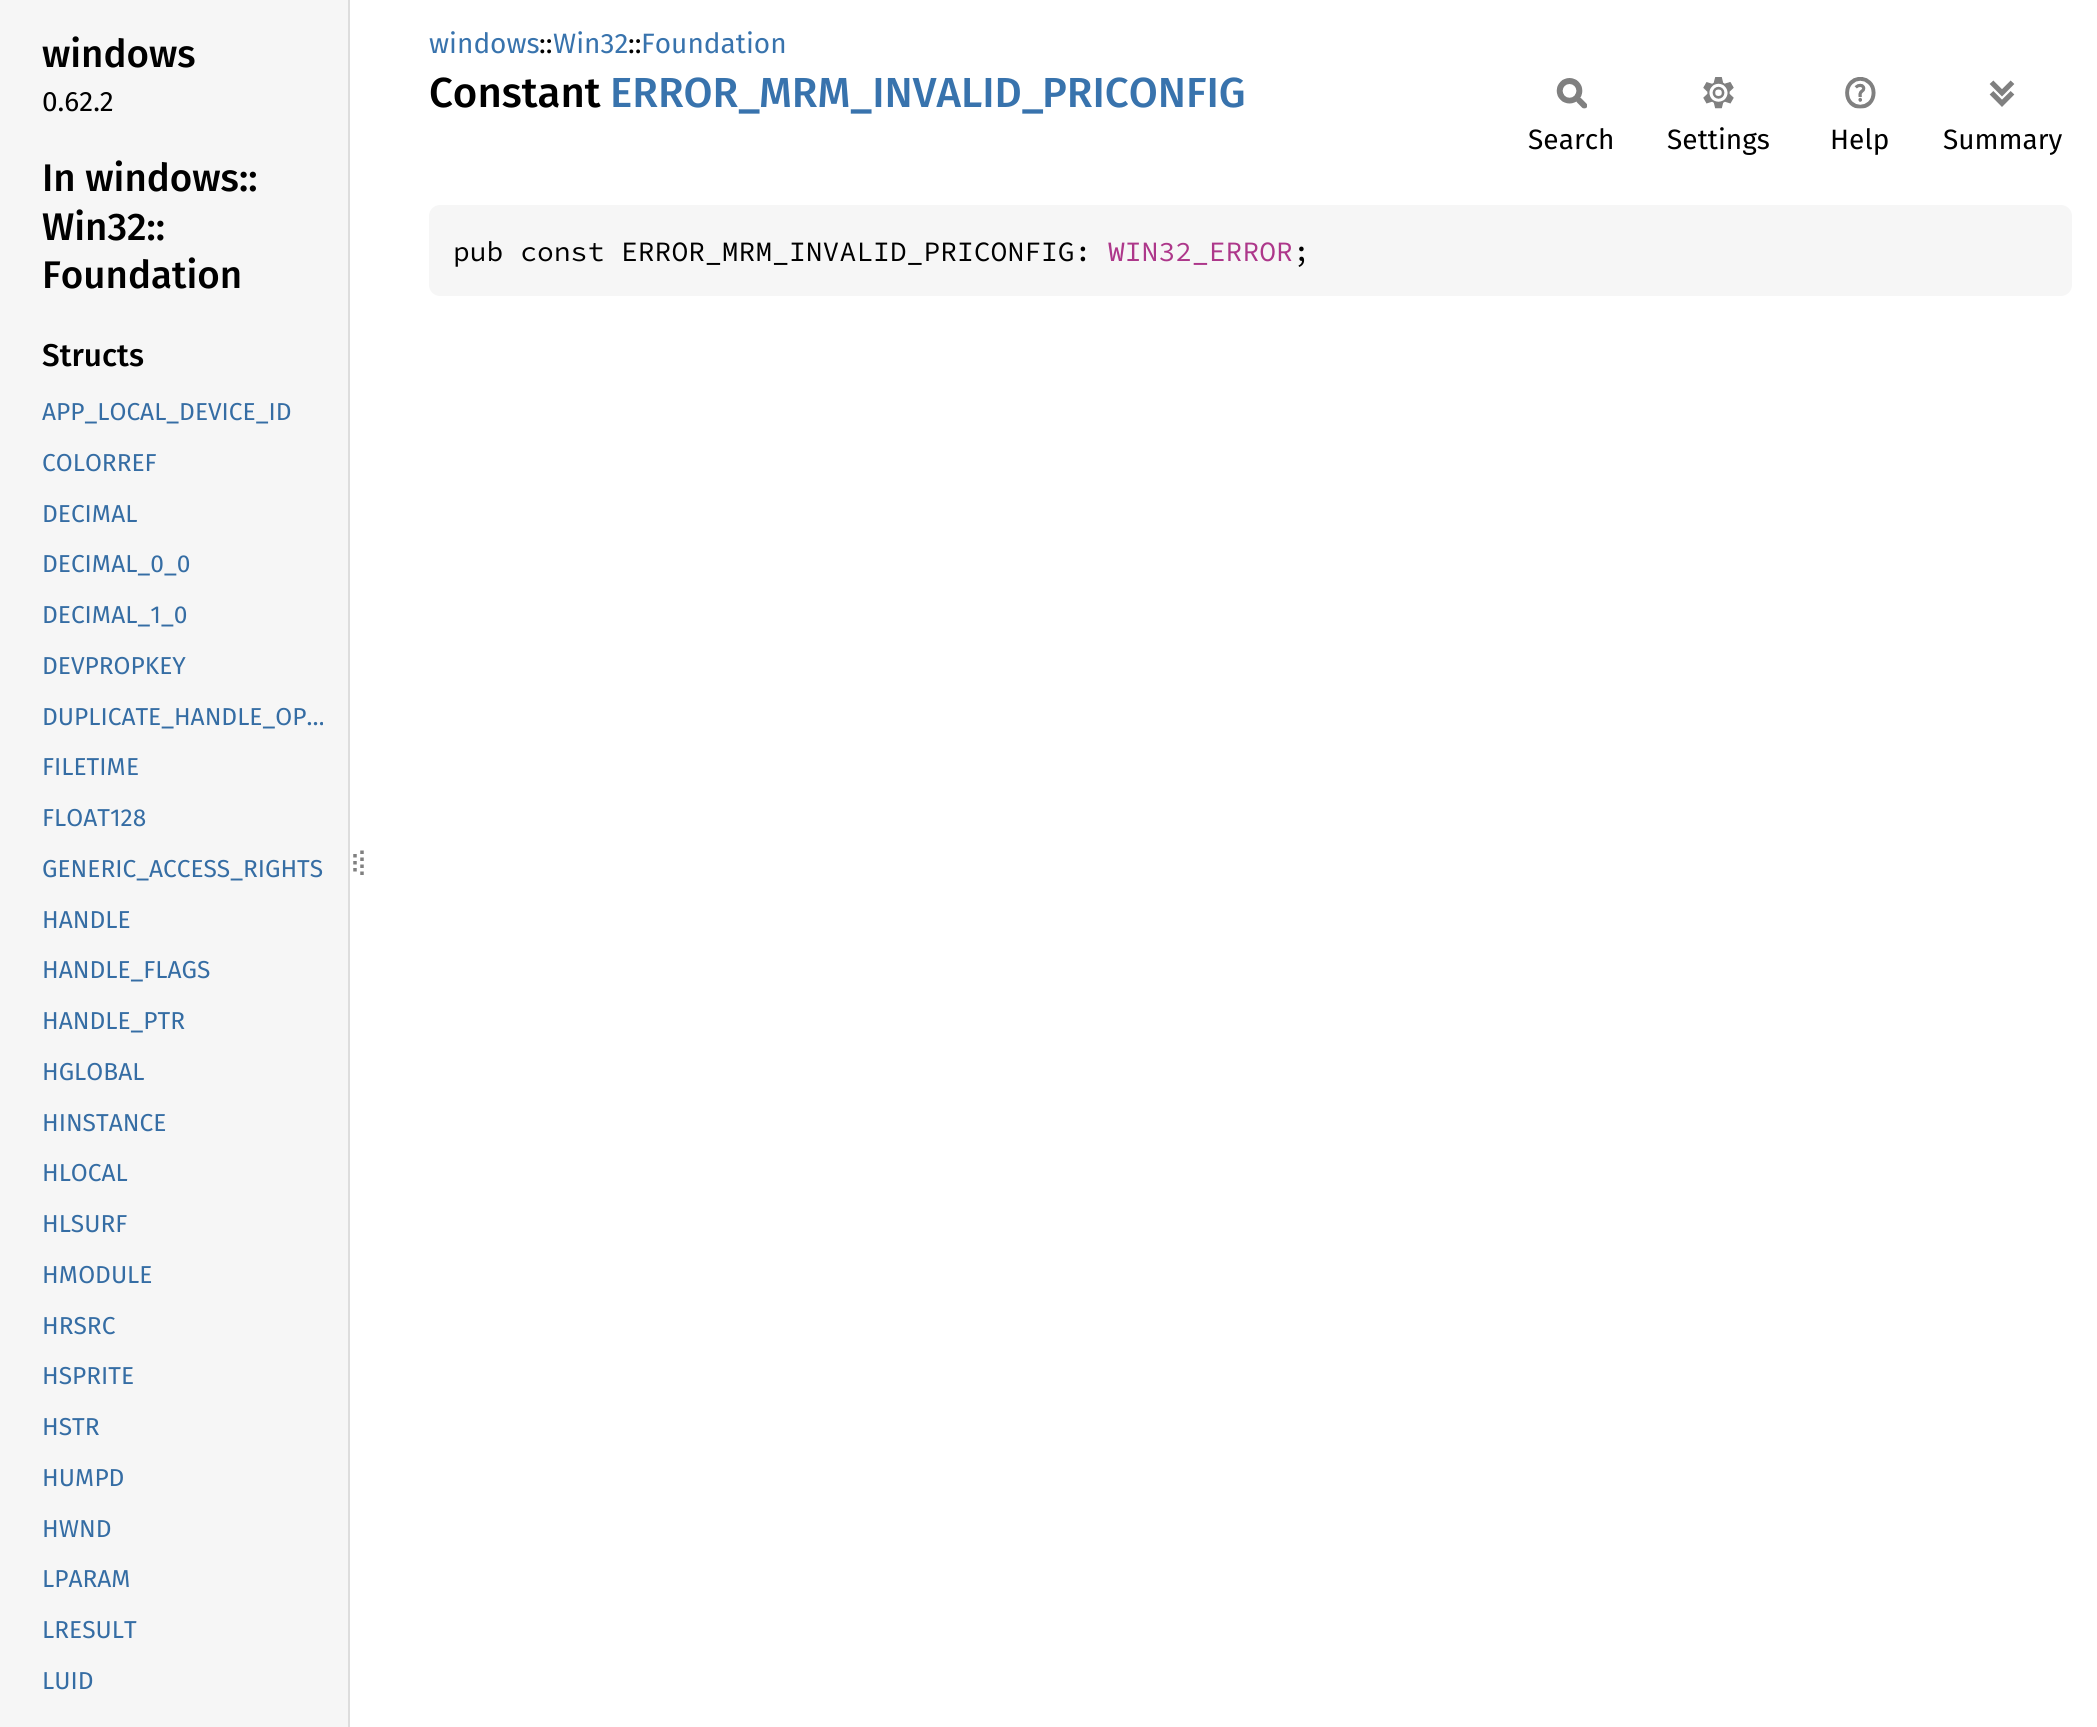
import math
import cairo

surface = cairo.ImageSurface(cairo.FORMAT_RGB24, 2097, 1727)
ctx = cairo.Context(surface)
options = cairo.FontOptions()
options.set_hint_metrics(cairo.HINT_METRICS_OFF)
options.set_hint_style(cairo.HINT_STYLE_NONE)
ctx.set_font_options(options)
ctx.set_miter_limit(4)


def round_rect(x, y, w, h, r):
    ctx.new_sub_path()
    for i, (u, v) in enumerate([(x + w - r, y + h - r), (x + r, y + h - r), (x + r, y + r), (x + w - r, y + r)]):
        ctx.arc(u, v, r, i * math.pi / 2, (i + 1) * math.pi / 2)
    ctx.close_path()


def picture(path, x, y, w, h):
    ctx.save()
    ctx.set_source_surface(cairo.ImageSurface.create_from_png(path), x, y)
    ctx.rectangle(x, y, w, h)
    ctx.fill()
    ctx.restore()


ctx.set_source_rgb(1, 1, 1)
ctx.paint()
ctx.set_source_rgb(0.961, 0.961, 0.961)
ctx.rectangle(0, 0, 348, 1727)
ctx.fill()
ctx.set_source_rgb(0.867, 0.867, 0.867)
ctx.rectangle(348, 0, 2, 1727)
ctx.fill()
ctx.select_font_face("Fira Sans Medium")
ctx.set_font_size(38.5)
ctx.set_source_rgb(0, 0, 0)
ctx.move_to(42, 67)
ctx.show_text("windows")
ctx.select_font_face("Fira Sans")
ctx.set_font_size(28)
ctx.move_to(42, 111)
ctx.show_text("0.62.2")
ctx.select_font_face("Fira Sans Medium")
ctx.set_font_size(38.5)
ctx.move_to(42, 191)
ctx.show_text("In windows::")
ctx.move_to(42, 240)
ctx.show_text("Win32::")
ctx.move_to(42, 288)
ctx.show_text("Foundation")
ctx.set_font_size(31.5)
ctx.move_to(42, 366)
ctx.show_text("Structs")
ctx.select_font_face("Fira Sans")
ctx.set_font_size(24.5)
ctx.set_source_rgb(0.208, 0.427, 0.643)
ctx.move_to(42, 420)
ctx.show_text("APP_LOCAL_DEVICE_ID")
ctx.move_to(42, 471)
ctx.show_text("COLORREF")
ctx.move_to(42, 522)
ctx.show_text("DECIMAL")
ctx.move_to(42, 572)
ctx.show_text("DECIMAL_0_0")
ctx.move_to(42, 623)
ctx.show_text("DECIMAL_1_0")
ctx.move_to(42, 674)
ctx.show_text("DEVPROPKEY")
ctx.move_to(42, 725)
ctx.show_text("DUPLICATE_HANDLE_OP…")
ctx.move_to(42, 775)
ctx.show_text("FILETIME")
ctx.move_to(42, 826)
ctx.show_text("FLOAT128")
ctx.move_to(42, 877)
ctx.show_text("GENERIC_ACCESS_RIGHTS")
ctx.move_to(42, 928)
ctx.show_text("HANDLE")
ctx.move_to(42, 978)
ctx.show_text("HANDLE_FLAGS")
ctx.move_to(42, 1029)
ctx.show_text("HANDLE_PTR")
ctx.move_to(42, 1080)
ctx.show_text("HGLOBAL")
ctx.move_to(42, 1131)
ctx.show_text("HINSTANCE")
ctx.move_to(42, 1181)
ctx.show_text("HLOCAL")
ctx.move_to(42, 1232)
ctx.show_text("HLSURF")
ctx.move_to(42, 1283)
ctx.show_text("HMODULE")
ctx.move_to(42, 1334)
ctx.show_text("HRSRC")
ctx.move_to(42, 1384)
ctx.show_text("HSPRITE")
ctx.move_to(42, 1435)
ctx.show_text("HSTR")
ctx.move_to(42, 1486)
ctx.show_text("HUMPD")
ctx.move_to(42, 1537)
ctx.show_text("HWND")
ctx.move_to(42, 1587)
ctx.show_text("LPARAM")
ctx.move_to(42, 1638)
ctx.show_text("LRESULT")
ctx.move_to(42, 1689)
ctx.show_text("LUID")
ctx.new_path()
ctx.move_to(355, 854)
ctx.line_to(355, 857.5)
ctx.move_to(355, 861)
ctx.line_to(355, 864.5)
ctx.move_to(355, 868)
ctx.line_to(355, 871.5)
ctx.set_source_rgb(0.502, 0.502, 0.502)
ctx.set_line_width(3.5)
ctx.stroke()
ctx.new_path()
ctx.move_to(362, 850.5)
ctx.line_to(362, 878.5)
ctx.set_dash([3.5, 3.5])
ctx.stroke()
ctx.set_font_size(28)
ctx.set_source_rgb(0.22, 0.451, 0.678)
ctx.move_to(429, 53)
ctx.show_text("windows")
ctx.set_source_rgb(0, 0, 0)
ctx.move_to(539, 53)
ctx.show_text("::")
ctx.set_source_rgb(0.22, 0.451, 0.678)
ctx.move_to(553, 53)
ctx.show_text("Win32")
ctx.set_source_rgb(0, 0, 0)
ctx.move_to(628, 53)
ctx.show_text("::")
ctx.set_source_rgb(0.22, 0.451, 0.678)
ctx.move_to(641, 53)
ctx.show_text("Foundation")
ctx.select_font_face("Fira Sans Medium")
ctx.set_font_size(42)
ctx.set_source_rgb(0, 0, 0)
ctx.move_to(429, 107)
ctx.show_text("Constant")
ctx.set_source_rgb(0.22, 0.451, 0.678)
ctx.move_to(610, 107)
ctx.show_text("ERROR_")
ctx.move_to(759, 107)
ctx.show_text("MRM_INVALID_")
ctx.move_to(1042, 107)
ctx.show_text("PRICONFIG")
picture("img1.png", 1556, 78, 31, 31)
ctx.select_font_face("Fira Sans")
ctx.set_font_size(28)
ctx.set_source_rgb(0, 0, 0)
ctx.move_to(1528, 149)
ctx.show_text("Search")
picture("img2.png", 1703, 77, 31, 32)
ctx.move_to(1667, 149)
ctx.show_text("Settings")
picture("img3.png", 1845, 77, 31, 32)
ctx.move_to(1830, 149)
ctx.show_text("Help")
picture("img4.png", 1989, 80, 26, 27)
ctx.move_to(1943, 149)
ctx.show_text("Summary")
ctx.set_source_rgb(0.961, 0.961, 0.961)
round_rect(429, 205, 1643, 91, 11)
ctx.fill()
ctx.select_font_face("Source Code Pro")
ctx.set_source_rgb(0, 0, 0)
ctx.move_to(453, 261)
ctx.show_text("pub const ERROR_MRM_INVALID_PRICONFIG:")
ctx.set_source_rgb(0.678, 0.216, 0.541)
ctx.move_to(1108, 261)
ctx.show_text("WIN32_ERROR")
ctx.set_source_rgb(0, 0, 0)
ctx.move_to(1293, 261)
ctx.show_text(";")
surface.write_to_png("page.png")
